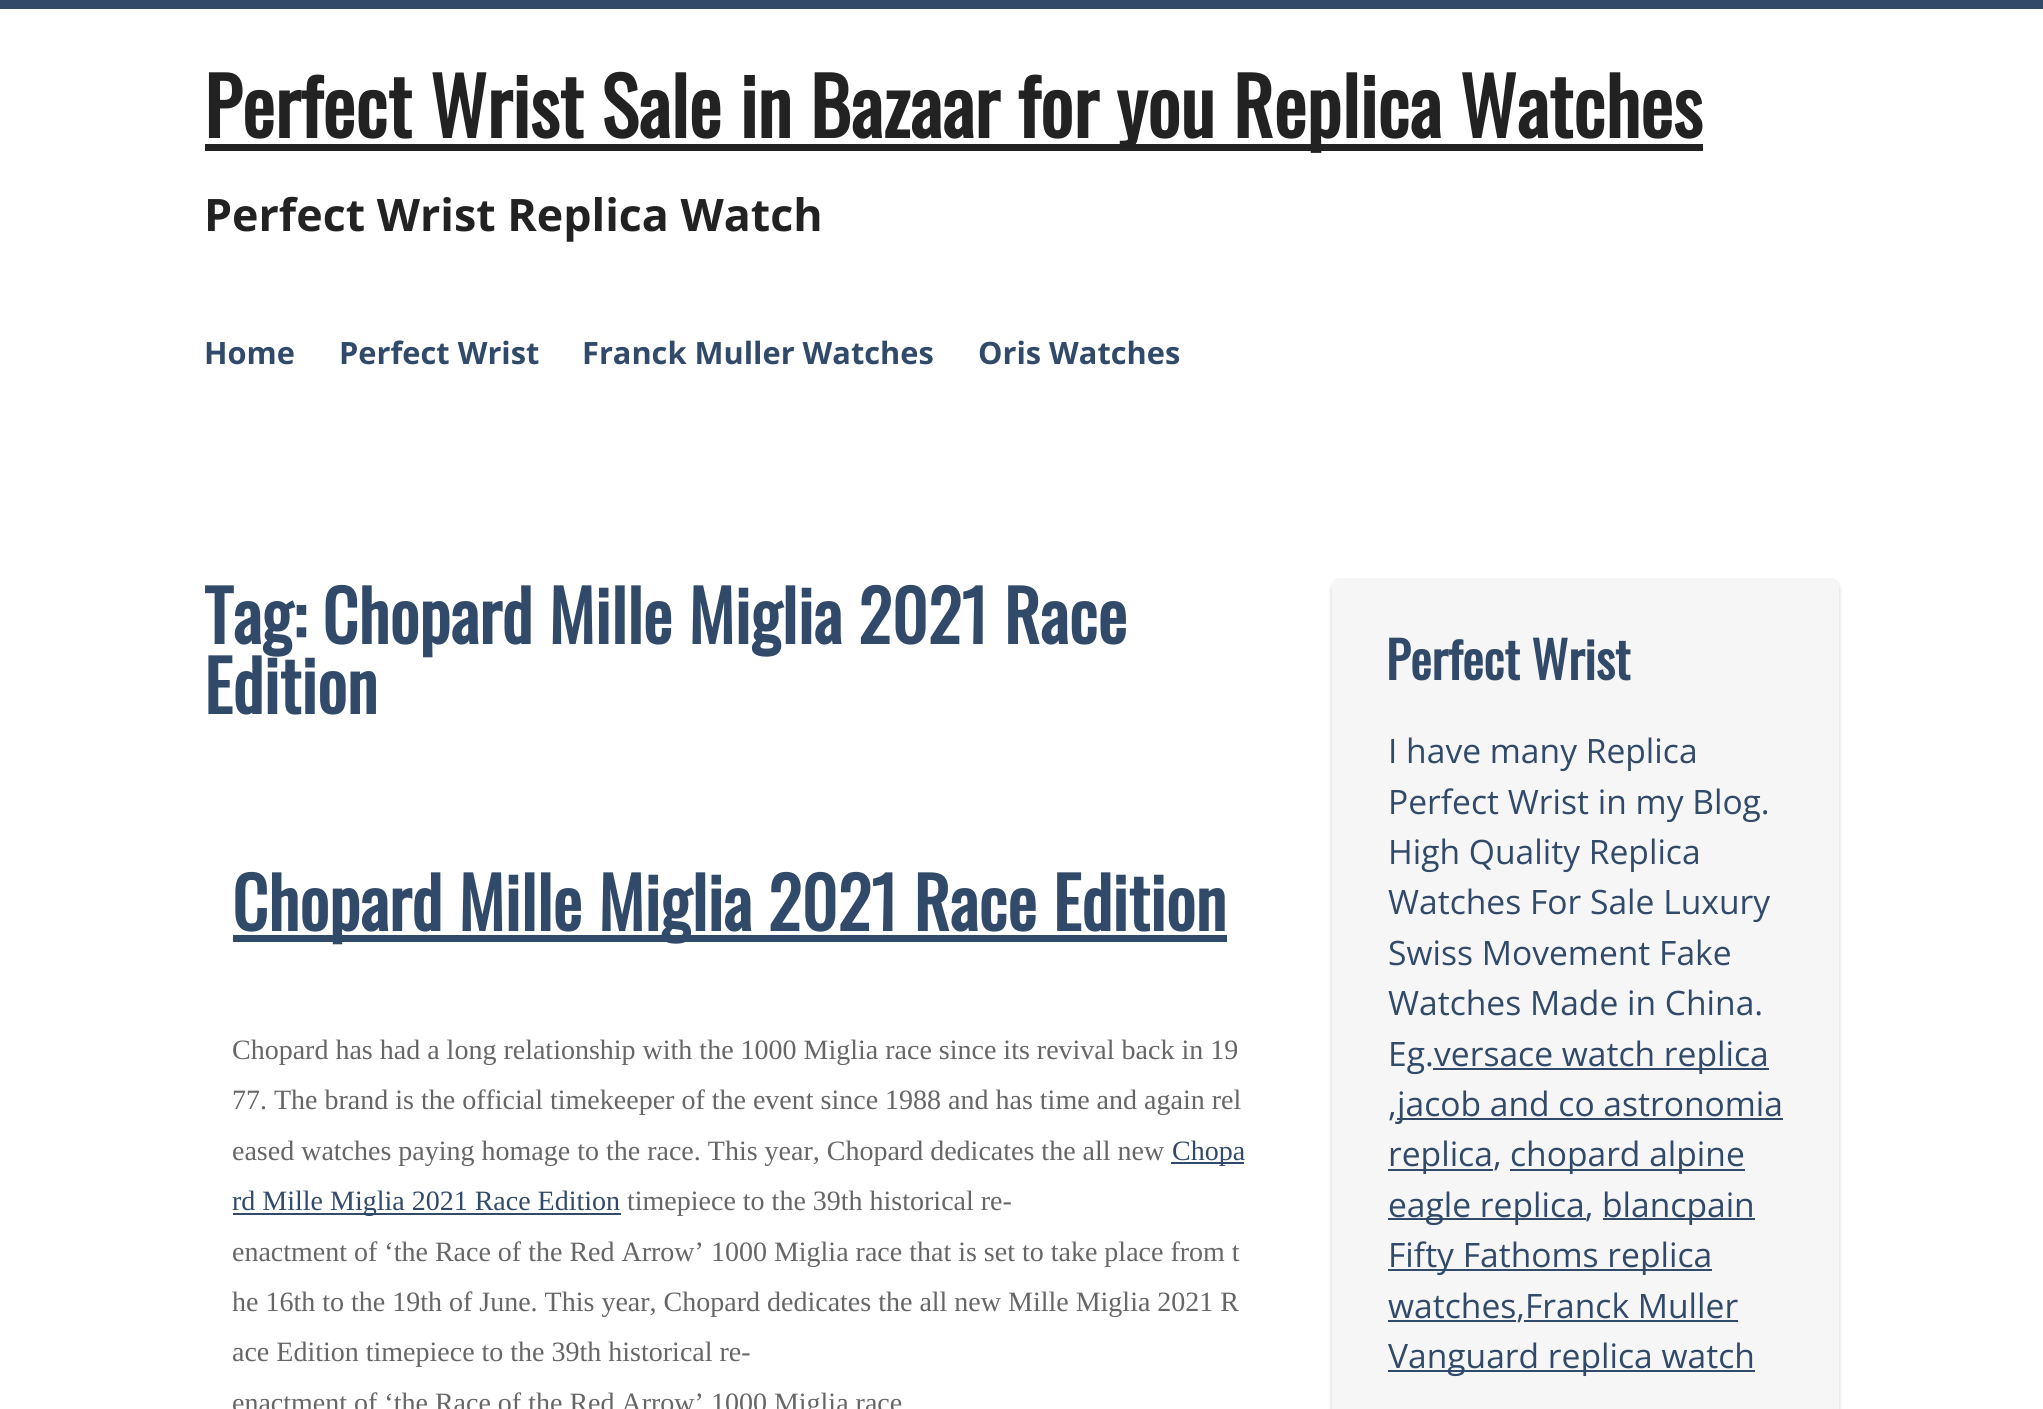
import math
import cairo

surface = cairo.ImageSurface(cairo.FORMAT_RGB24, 2043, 1409)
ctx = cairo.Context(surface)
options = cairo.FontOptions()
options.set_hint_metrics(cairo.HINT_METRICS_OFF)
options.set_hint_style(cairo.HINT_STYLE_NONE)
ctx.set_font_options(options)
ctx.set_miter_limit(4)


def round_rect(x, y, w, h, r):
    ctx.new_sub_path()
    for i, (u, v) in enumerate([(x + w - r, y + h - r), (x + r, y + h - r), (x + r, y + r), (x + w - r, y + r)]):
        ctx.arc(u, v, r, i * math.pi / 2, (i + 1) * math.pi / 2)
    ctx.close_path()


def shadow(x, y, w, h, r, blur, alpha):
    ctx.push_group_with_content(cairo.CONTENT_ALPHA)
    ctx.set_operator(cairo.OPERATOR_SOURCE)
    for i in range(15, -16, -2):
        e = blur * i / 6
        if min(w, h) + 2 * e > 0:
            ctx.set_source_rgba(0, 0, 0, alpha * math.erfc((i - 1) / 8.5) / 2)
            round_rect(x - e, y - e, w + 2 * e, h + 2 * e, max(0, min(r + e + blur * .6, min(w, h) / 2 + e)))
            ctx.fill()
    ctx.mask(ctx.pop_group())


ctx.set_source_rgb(1, 1, 1)
ctx.paint()
ctx.set_source_rgb(0.192, 0.29, 0.412)
ctx.rectangle(0, 0, 2043, 9)
ctx.fill()
ctx.set_source_rgb(0.133, 0.133, 0.133)
ctx.rectangle(205, 144, 1498, 7)
ctx.fill()
ctx.select_font_face("Oswald", cairo.FONT_SLANT_NORMAL, cairo.FONT_WEIGHT_BOLD)
ctx.set_font_size(78.4)
ctx.move_to(204, 138)
ctx.show_text("Perfect Wrist Sale in Bazaar for you Replica Watches")
ctx.select_font_face("Open Sans", cairo.FONT_SLANT_NORMAL, cairo.FONT_WEIGHT_BOLD)
ctx.set_font_size(44.75)
ctx.move_to(204, 231)
ctx.show_text("Perfect Wrist Replica Watch")
ctx.set_font_size(30.75)
ctx.set_source_rgb(0.192, 0.29, 0.412)
ctx.move_to(204, 364)
ctx.show_text("Home")
ctx.move_to(339, 364)
ctx.show_text("Perfect Wrist")
ctx.move_to(582, 364)
ctx.show_text("Franck Muller Watches")
ctx.move_to(978, 364)
ctx.show_text("Oris Watches")
ctx.select_font_face("Oswald", cairo.FONT_SLANT_NORMAL, cairo.FONT_WEIGHT_BOLD)
ctx.set_font_size(70)
ctx.move_to(204, 644)
ctx.show_text("Tag: Chopard Mille Miglia 2021 Race")
ctx.move_to(204, 714)
ctx.show_text("Edition")
ctx.rectangle(233, 935, 994, 7)
ctx.fill()
ctx.move_to(232, 931)
ctx.show_text("Chopard Mille Miglia 2021 Race Edition")
ctx.select_font_face("Liberation Serif")
ctx.set_font_size(28)
ctx.set_source_rgb(0.4, 0.4, 0.4)
ctx.move_to(232, 1059)
ctx.show_text("Chopard has had a long relationship with the 1000 Miglia race since its revival back in 19")
ctx.move_to(232, 1109)
ctx.show_text("77. The brand is the official timekeeper of the event since 1988 and has time and again rel")
ctx.move_to(232, 1160)
ctx.show_text("eased watches paying homage to the race. This year, Chopard dedicates the all new")
ctx.set_source_rgb(0.192, 0.29, 0.412)
ctx.rectangle(1171, 1162, 73, 2)
ctx.fill()
ctx.move_to(1172, 1160)
ctx.show_text("Chopa")
ctx.rectangle(233, 1213, 388, 2)
ctx.fill()
ctx.move_to(232, 1210)
ctx.show_text("rd Mille Miglia 2021 Race Edition")
ctx.set_source_rgb(0.4, 0.4, 0.4)
ctx.move_to(627, 1210)
ctx.show_text("timepiece to the 39th historical re-")
ctx.move_to(232, 1261)
ctx.show_text("enactment of ‘the Race of the Red Arrow’ 1000 Miglia race that is set to take place from t")
ctx.move_to(232, 1311)
ctx.show_text("he 16th to the 19th of June. This year, Chopard dedicates the all new Mille Miglia 2021 R")
ctx.move_to(232, 1361)
ctx.show_text("ace Edition timepiece to the 39th historical re-")
ctx.move_to(232, 1412)
ctx.show_text("enactment of ‘the Race of the Red Arrow’ 1000 Miglia race")
ctx.set_source_rgb(0, 0, 0)
shadow(1332, 583, 507, 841, 7, 2.5, 0.2)
ctx.set_source_rgb(0.961, 0.961, 0.961)
round_rect(1332, 578, 507, 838, 7)
ctx.fill()
ctx.select_font_face("Oswald", cairo.FONT_SLANT_NORMAL, cairo.FONT_WEIGHT_BOLD)
ctx.set_font_size(50.5)
ctx.set_source_rgb(0.192, 0.29, 0.412)
ctx.move_to(1386, 680)
ctx.show_text("Perfect Wrist")
ctx.select_font_face("Open Sans")
ctx.set_font_size(33.6)
ctx.move_to(1388, 763)
ctx.show_text("I have many Replica")
ctx.move_to(1388, 814)
ctx.show_text("Perfect Wrist in my Blog.")
ctx.move_to(1388, 864)
ctx.show_text("High Quality Replica")
ctx.move_to(1388, 914)
ctx.show_text("Watches For Sale Luxury")
ctx.move_to(1388, 965)
ctx.show_text("Swiss Movement Fake")
ctx.move_to(1388, 1015)
ctx.show_text("Watches Made in China.")
ctx.move_to(1388, 1066)
ctx.show_text("Eg.")
ctx.rectangle(1433, 1068, 336, 2)
ctx.fill()
ctx.move_to(1434, 1066)
ctx.show_text("versace watch replica")
ctx.move_to(1388, 1116)
ctx.show_text(",")
ctx.rectangle(1397, 1118, 386, 2)
ctx.fill()
ctx.move_to(1397, 1116)
ctx.show_text("jacob and co astronomia")
ctx.rectangle(1388, 1169, 105, 2)
ctx.fill()
ctx.move_to(1388, 1166)
ctx.show_text("replica,")
ctx.rectangle(1510, 1169, 235, 2)
ctx.fill()
ctx.move_to(1510, 1166)
ctx.show_text("chopard alpine")
ctx.rectangle(1388, 1218, 198, 2)
ctx.fill()
ctx.move_to(1388, 1217)
ctx.show_text("eagle replica,")
ctx.rectangle(1603, 1218, 152, 2)
ctx.fill()
ctx.move_to(1602, 1217)
ctx.show_text("blancpain")
ctx.rectangle(1388, 1269, 324, 2)
ctx.fill()
ctx.move_to(1388, 1267)
ctx.show_text("Fifty Fathoms replica")
ctx.rectangle(1388, 1320, 128, 2)
ctx.fill()
ctx.move_to(1388, 1318)
ctx.show_text("watches,Franck Muller")
ctx.rectangle(1388, 1370, 367, 2)
ctx.fill()
ctx.move_to(1388, 1368)
ctx.show_text("Vanguard replica watch")
ctx.rectangle(1524, 1320, 214, 2)
ctx.fill()
surface.write_to_png("page.png")
